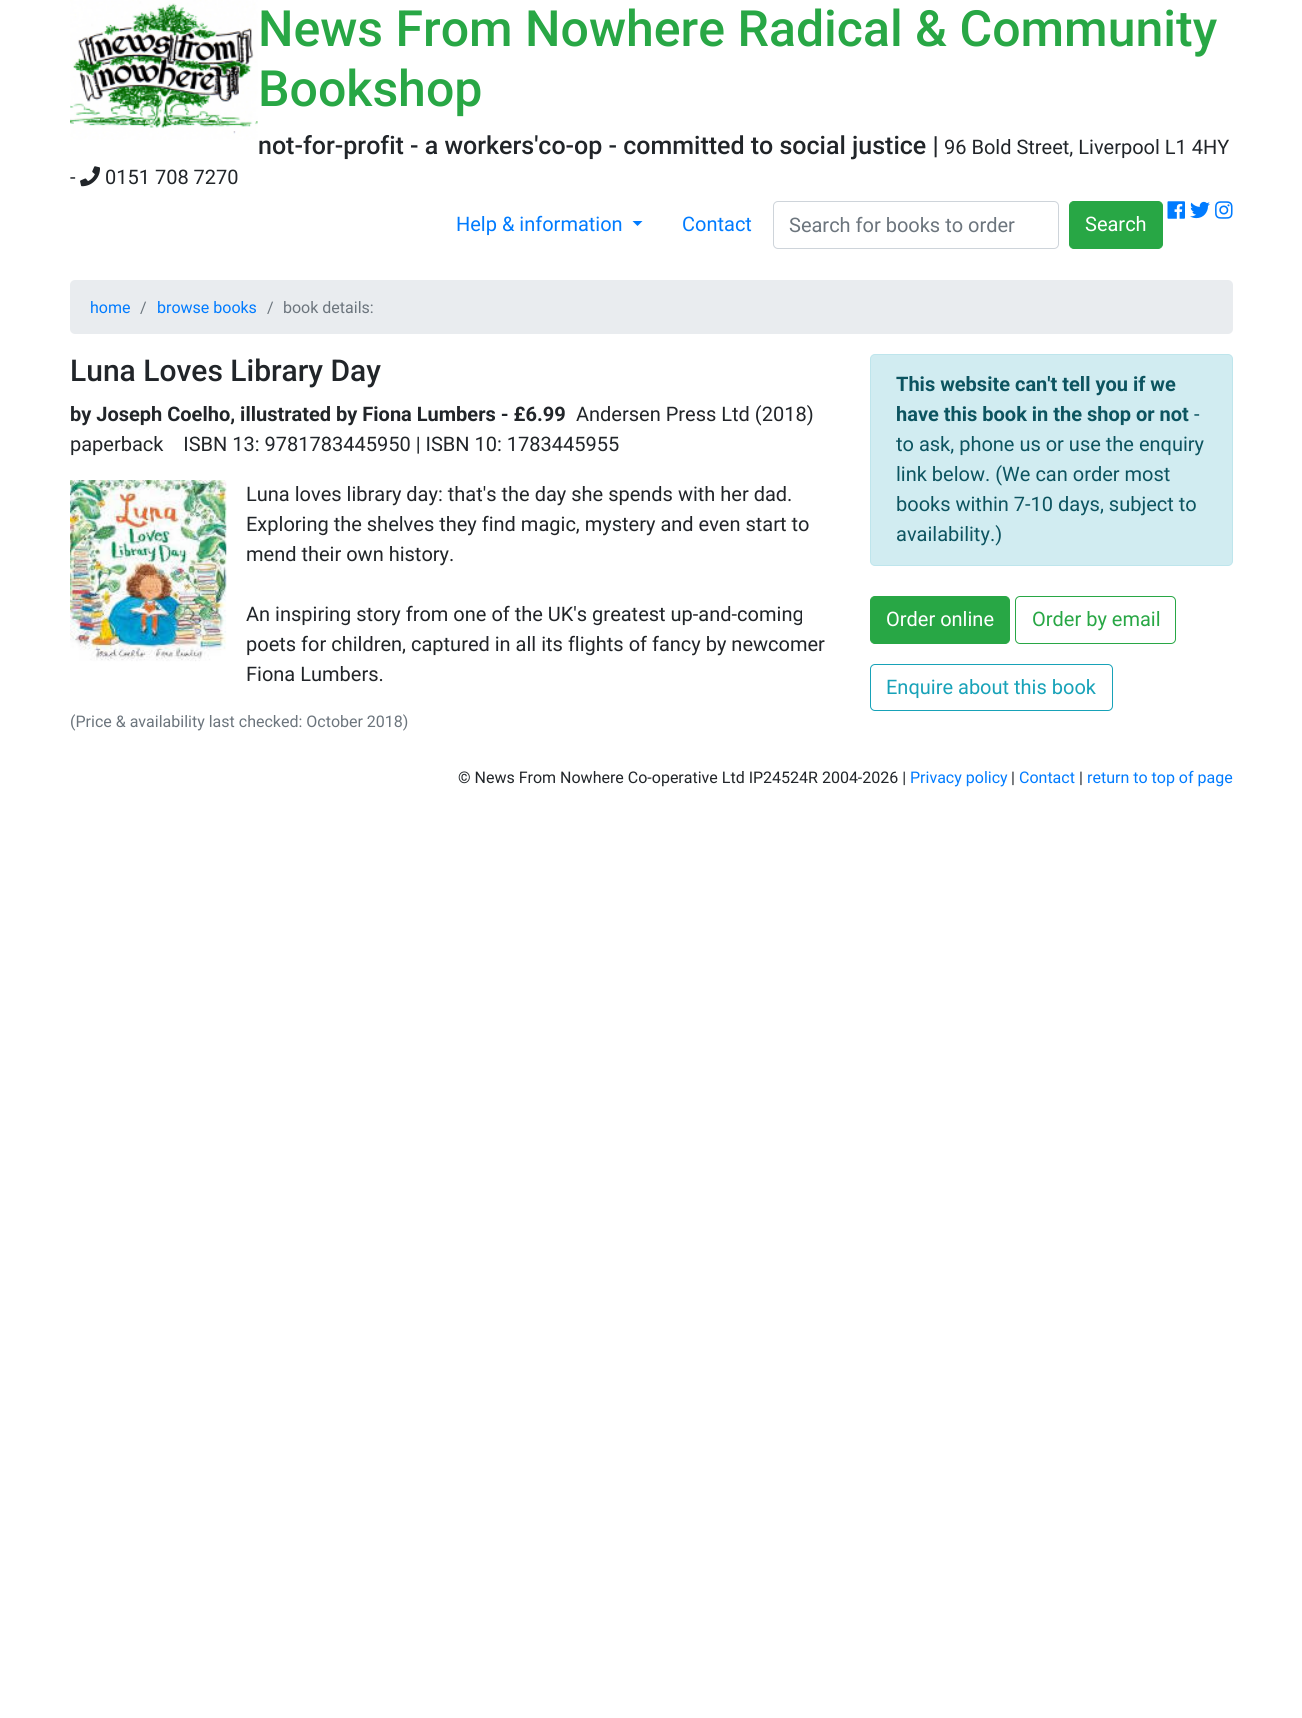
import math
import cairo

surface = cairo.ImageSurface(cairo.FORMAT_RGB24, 1302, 1718)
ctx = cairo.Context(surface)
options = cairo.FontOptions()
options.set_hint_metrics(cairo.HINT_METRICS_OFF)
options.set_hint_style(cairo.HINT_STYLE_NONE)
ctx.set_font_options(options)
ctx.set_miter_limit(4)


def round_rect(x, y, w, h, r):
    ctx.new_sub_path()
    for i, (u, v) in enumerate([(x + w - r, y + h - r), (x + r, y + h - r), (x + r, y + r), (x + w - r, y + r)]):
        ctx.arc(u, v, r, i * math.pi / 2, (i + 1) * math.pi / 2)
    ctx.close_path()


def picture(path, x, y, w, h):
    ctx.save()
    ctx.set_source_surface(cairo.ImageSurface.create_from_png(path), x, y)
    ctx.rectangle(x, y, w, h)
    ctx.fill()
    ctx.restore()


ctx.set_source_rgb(1, 1, 1)
ctx.paint()
picture("img1.png", 70, 0, 188, 140)
ctx.select_font_face("Roboto Medium")
ctx.set_font_size(50)
ctx.set_source_rgb(0.157, 0.655, 0.271)
ctx.move_to(258, 46)
ctx.show_text("News From Nowhere Radical & Community")
ctx.move_to(258, 106)
ctx.show_text("Bookshop")
ctx.set_font_size(25)
ctx.set_source_rgb(0.129, 0.145, 0.161)
ctx.move_to(258, 154)
ctx.show_text("not-for-profit - a workers'co-op - committed to social justice |")
ctx.select_font_face("Roboto")
ctx.set_font_size(20)
ctx.move_to(944, 154)
ctx.show_text("96 Bold Street, Liverpool L1 4HY")
ctx.move_to(70, 184)
ctx.show_text("-")
picture("img2.png", 80, 166, 20, 21)
ctx.move_to(105, 184)
ctx.show_text("0151 708 7270")
picture("img3.png", 1167, 201, 18, 18)
picture("img4.png", 1190, 201, 20, 18)
picture("img5.png", 1215, 201, 18, 18)
ctx.set_source_rgb(0, 0.482, 1)
ctx.move_to(456, 231)
ctx.show_text("Help & information")
ctx.new_path()
ctx.move_to(632.5, 221)
ctx.line_to(642.5, 221)
ctx.line_to(637.5, 226)
ctx.close_path()
ctx.fill()
ctx.move_to(682, 231)
ctx.show_text("Contact")
round_rect(773.5, 201.5, 285, 47, 4.5)
ctx.set_source_rgb(0.808, 0.831, 0.855)
ctx.set_line_width(1)
ctx.stroke()
ctx.set_source_rgb(0.424, 0.459, 0.49)
ctx.move_to(789, 232)
ctx.show_text("Search for books to order")
ctx.set_source_rgb(0.157, 0.655, 0.271)
round_rect(1069.5, 201.5, 93, 47, 4.5)
ctx.fill_preserve()
ctx.stroke()
ctx.set_source_rgb(1, 1, 1)
ctx.move_to(1085, 231)
ctx.show_text("Search")
ctx.set_source_rgb(0.914, 0.925, 0.937)
round_rect(70, 280, 1163, 54, 5)
ctx.fill()
ctx.set_font_size(16)
ctx.set_source_rgb(0, 0.482, 1)
ctx.move_to(90, 313)
ctx.show_text("home")
ctx.set_source_rgb(0.424, 0.459, 0.49)
ctx.move_to(140, 313)
ctx.show_text("/")
ctx.set_source_rgb(0, 0.482, 1)
ctx.move_to(157, 313)
ctx.show_text("browse books")
ctx.set_source_rgb(0.424, 0.459, 0.49)
ctx.move_to(267, 313)
ctx.show_text("/")
ctx.move_to(283, 313)
ctx.show_text("book details:")
ctx.select_font_face("Roboto Medium")
ctx.set_font_size(30)
ctx.set_source_rgb(0.129, 0.145, 0.161)
ctx.move_to(70, 381)
ctx.show_text("Luna Loves Library Day")
ctx.select_font_face("Roboto", cairo.FONT_SLANT_NORMAL, cairo.FONT_WEIGHT_BOLD)
ctx.set_font_size(20)
ctx.move_to(70, 421)
ctx.show_text("by Joseph Coelho, illustrated by Fiona Lumbers - £6.99")
ctx.select_font_face("Roboto")
ctx.move_to(576, 421)
ctx.show_text("Andersen Press Ltd (2018)")
ctx.move_to(70, 451)
ctx.show_text("paperback    ISBN 13: 9781783445950 | ISBN 10: 1783445955")
picture("img6.png", 70, 480, 157, 182)
ctx.move_to(246, 501)
ctx.show_text("Luna loves library day: that's the day she spends with her dad.")
ctx.move_to(246, 531)
ctx.show_text("Exploring the shelves they find magic, mystery and even start to")
ctx.move_to(246, 561)
ctx.show_text("mend their own history.")
ctx.move_to(246, 621)
ctx.show_text("An inspiring story from one of the UK's greatest up-and-coming")
ctx.move_to(246, 651)
ctx.show_text("poets for children, captured in all its flights of fancy by newcomer")
ctx.move_to(246, 681)
ctx.show_text("Fiona Lumbers.")
ctx.set_font_size(16)
ctx.set_source_rgb(0.424, 0.459, 0.49)
ctx.move_to(70, 727)
ctx.show_text("(Price & availability last checked: October 2018)")
ctx.set_source_rgb(0.82, 0.925, 0.945)
round_rect(870.5, 354.5, 362, 211, 4.5)
ctx.fill_preserve()
ctx.set_source_rgb(0.745, 0.898, 0.922)
ctx.stroke()
ctx.select_font_face("Roboto", cairo.FONT_SLANT_NORMAL, cairo.FONT_WEIGHT_BOLD)
ctx.set_font_size(20)
ctx.set_source_rgb(0.047, 0.329, 0.376)
ctx.move_to(896, 391)
ctx.show_text("This website can't tell you if we")
ctx.move_to(896, 421)
ctx.show_text("have this book in the shop or not")
ctx.select_font_face("Roboto")
ctx.move_to(1194, 421)
ctx.show_text("-")
ctx.move_to(896, 451)
ctx.show_text("to ask, phone us or use the enquiry")
ctx.move_to(896, 481)
ctx.show_text("link below. (We can order most")
ctx.move_to(896, 511)
ctx.show_text("books within 7-10 days, subject to")
ctx.move_to(896, 541)
ctx.show_text("availability.)")
ctx.set_source_rgb(0.157, 0.655, 0.271)
round_rect(870.5, 596.5, 139, 47, 4.5)
ctx.fill_preserve()
ctx.stroke()
ctx.set_source_rgb(1, 1, 1)
ctx.move_to(886, 626)
ctx.show_text("Order online")
round_rect(1015.5, 596.5, 160, 47, 4.5)
ctx.set_source_rgb(0.157, 0.655, 0.271)
ctx.stroke()
ctx.move_to(1032, 626)
ctx.show_text("Order by email")
round_rect(870.5, 664.5, 242, 46, 4.5)
ctx.set_source_rgb(0.09, 0.635, 0.722)
ctx.stroke()
ctx.move_to(886, 694)
ctx.show_text("Enquire about this book")
ctx.set_font_size(16)
ctx.set_source_rgb(0.129, 0.145, 0.161)
ctx.move_to(458, 783)
ctx.show_text("© News From Nowhere Co-operative Ltd IP24524R 2004-2026 |")
ctx.set_source_rgb(0, 0.482, 1)
ctx.move_to(910, 783)
ctx.show_text("Privacy policy")
ctx.set_source_rgb(0.129, 0.145, 0.161)
ctx.move_to(1011, 783)
ctx.show_text("|")
ctx.set_source_rgb(0, 0.482, 1)
ctx.move_to(1019, 783)
ctx.show_text("Contact")
ctx.set_source_rgb(0.129, 0.145, 0.161)
ctx.move_to(1079, 783)
ctx.show_text("|")
ctx.set_source_rgb(0, 0.482, 1)
ctx.move_to(1087, 783)
ctx.show_text("return to top of page")
surface.write_to_png("page.png")
